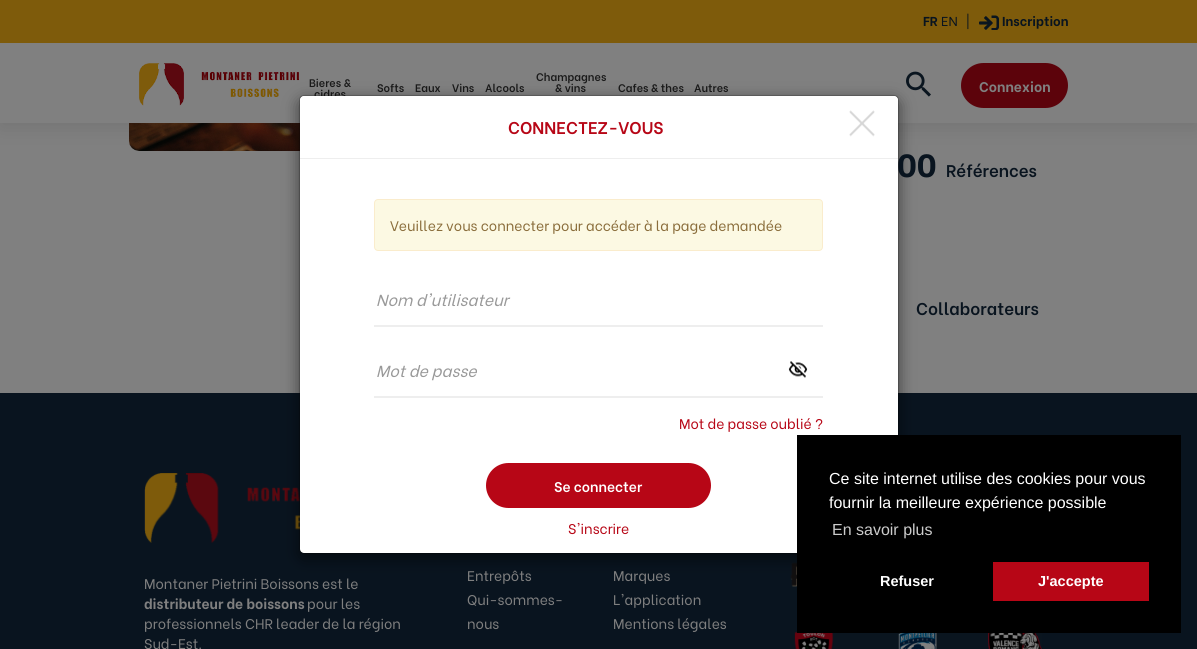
import math
import cairo

surface = cairo.ImageSurface(cairo.FORMAT_RGB24, 1197, 649)
ctx = cairo.Context(surface)
options = cairo.FontOptions()
options.set_hint_metrics(cairo.HINT_METRICS_OFF)
options.set_hint_style(cairo.HINT_STYLE_NONE)
ctx.set_font_options(options)
ctx.set_miter_limit(4)


def round_rect(x, y, w, h, r):
    ctx.new_sub_path()
    for i, (u, v) in enumerate([(x + w - r, y + h - r), (x + r, y + h - r), (x + r, y + r), (x + w - r, y + r)]):
        ctx.arc(u, v, r, i * math.pi / 2, (i + 1) * math.pi / 2)
    ctx.close_path()


def shadow(x, y, w, h, r, blur, alpha):
    ctx.push_group_with_content(cairo.CONTENT_ALPHA)
    ctx.set_operator(cairo.OPERATOR_SOURCE)
    for i in range(15, -16, -2):
        e = blur * i / 6
        if min(w, h) + 2 * e > 0:
            ctx.set_source_rgba(0, 0, 0, alpha * math.erfc((i - 1) / 8.5) / 2)
            round_rect(x - e, y - e, w + 2 * e, h + 2 * e, max(0, min(r + e + blur * .6, min(w, h) / 2 + e)))
            ctx.fill()
    ctx.mask(ctx.pop_group())


def picture(path, x, y, w, h):
    ctx.save()
    ctx.set_source_surface(cairo.ImageSurface.create_from_png(path), x, y)
    ctx.rectangle(x, y, w, h)
    ctx.fill()
    ctx.restore()


ctx.set_source_rgb(0.502, 0.502, 0.502)
ctx.paint()
picture("img6.png", 129, 123, 171, 28)
ctx.set_source_rgb(0, 0, 0)
shadow(0, 4, 1197, 123, 0, 10, 0.1)
ctx.set_source_rgb(0.502, 0.502, 0.502)
ctx.rectangle(0, 43, 1197, 80)
ctx.fill()
ctx.set_source_rgb(0.494, 0.357, 0.043)
ctx.rectangle(0, 0, 1197, 43)
ctx.fill()
ctx.select_font_face("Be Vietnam", cairo.FONT_SLANT_NORMAL, cairo.FONT_WEIGHT_BOLD)
ctx.set_font_size(13)
ctx.set_source_rgb(0.039, 0.082, 0.122)
ctx.move_to(923, 26)
ctx.show_text("FR")
ctx.select_font_face("Be Vietnam")
ctx.move_to(941, 26)
ctx.show_text("EN")
ctx.move_to(966, 26)
ctx.show_text("|")
picture("img1.png", 979, 15, 20, 15)
ctx.select_font_face("Be Vietnam", cairo.FONT_SLANT_NORMAL, cairo.FONT_WEIGHT_BOLD)
ctx.move_to(1002, 26)
ctx.show_text("Inscription")
picture("img2.png", 139, 63, 160, 43)
ctx.select_font_face("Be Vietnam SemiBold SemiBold")
ctx.set_font_size(11)
ctx.set_source_rgb(0.102, 0.102, 0.102)
ctx.move_to(309, 87)
ctx.show_text("Bieres &")
ctx.move_to(314, 98)
ctx.show_text("cidres")
ctx.move_to(377, 92)
ctx.show_text("Softs")
ctx.move_to(415, 92)
ctx.show_text("Eaux")
ctx.move_to(452, 92)
ctx.show_text("Vins")
ctx.move_to(485, 92)
ctx.show_text("Alcools")
ctx.move_to(536, 81)
ctx.show_text("Champagnes")
ctx.move_to(555, 92)
ctx.show_text("& vins")
ctx.move_to(618, 92)
ctx.show_text("Cafes & thes")
ctx.move_to(694, 92)
ctx.show_text("Autres")
picture("img3.png", 906, 71, 25, 26)
ctx.set_source_rgb(0.361, 0.012, 0.043)
round_rect(961, 63, 107, 45, 22.5)
ctx.fill()
ctx.select_font_face("Be Vietnam", cairo.FONT_SLANT_NORMAL, cairo.FONT_WEIGHT_BOLD)
ctx.set_font_size(14)
ctx.set_source_rgb(0.502, 0.502, 0.502)
ctx.move_to(979, 92)
ctx.show_text("Connexion")
ctx.set_source_rgb(0.039, 0.082, 0.122)
ctx.rectangle(0, 393, 1197, 256)
ctx.fill()
picture("img7.png", 144, 473, 156, 70)
picture("img8.png", 790, 553, 252, 96)
ctx.set_source_rgb(0, 0, 0)
shadow(299, 100, 600, 459, 5, 7.5, 0.5)
ctx.set_source_rgb(1, 1, 1)
round_rect(300, 96, 598, 457, 4)
ctx.fill()
ctx.set_font_size(32)
ctx.set_source_rgb(0.039, 0.082, 0.122)
ctx.move_to(897, 177)
ctx.show_text("00")
round_rect(299.5, 95.5, 599, 458, 4.5)
ctx.set_source_rgba(0, 0, 0, 0.2)
ctx.set_line_width(1)
ctx.stroke()
ctx.set_source_rgb(1, 1, 1)
ctx.new_path()
ctx.move_to(305, 96)
ctx.line_to(893, 96)
ctx.curve_to(896, 96, 898, 98, 898, 101)
ctx.line_to(898, 159)
ctx.line_to(300, 159)
ctx.line_to(300, 101)
ctx.curve_to(300, 98, 302, 96, 305, 96)
ctx.close_path()
ctx.fill()
ctx.set_source_rgb(0.933, 0.933, 0.933)
ctx.rectangle(300, 158, 598, 1)
ctx.fill()
ctx.select_font_face("Be Vietnam SemiBold SemiBold")
ctx.set_font_size(17)
ctx.set_source_rgb(0.718, 0.024, 0.086)
ctx.move_to(508, 134)
ctx.show_text("CONNECTEZ-VOUS")
picture("img4.png", 849, 110, 26, 27)
ctx.set_source_rgb(0.988, 0.973, 0.89)
round_rect(374.5, 199.5, 448, 51, 3.5)
ctx.fill_preserve()
ctx.set_source_rgb(0.98, 0.922, 0.8)
ctx.stroke()
ctx.select_font_face("Be Vietnam")
ctx.set_font_size(14)
ctx.set_source_rgb(0.541, 0.427, 0.231)
ctx.move_to(390, 231)
ctx.show_text("Veuillez vous connecter pour accéder à la page demandée")
ctx.set_source_rgb(0.933, 0.933, 0.933)
ctx.rectangle(374, 325, 449, 2)
ctx.fill()
ctx.select_font_face("Be Vietnam", cairo.FONT_SLANT_ITALIC)
ctx.set_font_size(16)
ctx.set_source_rgb(0.6, 0.6, 0.6)
ctx.move_to(376, 306)
ctx.show_text("Nom d'utilisateur")
picture("img5.png", 788, 361, 20, 17)
ctx.set_source_rgb(0.933, 0.933, 0.933)
ctx.rectangle(374, 396, 449, 2)
ctx.fill()
ctx.set_source_rgb(0.6, 0.6, 0.6)
ctx.move_to(376, 377)
ctx.show_text("Mot de passe")
ctx.select_font_face("Be Vietnam")
ctx.set_font_size(14)
ctx.set_source_rgb(0.718, 0.024, 0.086)
ctx.move_to(679, 429)
ctx.show_text("Mot de passe oublié ?")
round_rect(486, 463, 225, 45, 22.5)
ctx.fill()
ctx.select_font_face("Be Vietnam SemiBold SemiBold")
ctx.set_source_rgb(1, 1, 1)
ctx.move_to(554, 492)
ctx.show_text("Se connecter")
ctx.select_font_face("Be Vietnam")
ctx.set_source_rgb(0.718, 0.024, 0.086)
ctx.move_to(568, 534)
ctx.show_text("S'inscrire")
ctx.select_font_face("Be Vietnam SemiBold SemiBold")
ctx.set_font_size(17)
ctx.set_source_rgb(0.039, 0.082, 0.122)
ctx.move_to(946, 177)
ctx.show_text("Références")
ctx.move_to(916, 315)
ctx.show_text("Collaborateurs")
ctx.set_source_rgb(0, 0, 0)
ctx.rectangle(797, 435, 384, 198)
ctx.fill()
ctx.select_font_face("Liberation Sans")
ctx.set_font_size(16)
ctx.set_source_rgb(1, 1, 1)
ctx.move_to(829, 484)
ctx.show_text("Ce site internet utilise des cookies pour vous")
ctx.move_to(829, 508)
ctx.show_text("fournir la meilleure expérience possible")
ctx.set_source_rgb(0.8, 0.8, 0.8)
ctx.move_to(832, 535)
ctx.show_text("En savoir plus")
ctx.select_font_face("Liberation Sans", cairo.FONT_SLANT_NORMAL, cairo.FONT_WEIGHT_BOLD)
ctx.set_font_size(14.5)
ctx.set_source_rgb(1, 1, 1)
ctx.move_to(880, 586)
ctx.show_text("Refuser")
ctx.set_source_rgb(0.718, 0.024, 0.086)
ctx.rectangle(993, 562, 156, 39)
ctx.fill()
ctx.set_source_rgb(1, 1, 1)
ctx.move_to(1038, 586)
ctx.show_text("J'accepte")
ctx.select_font_face("Be Vietnam")
ctx.set_font_size(14)
ctx.set_source_rgb(0.502, 0.502, 0.502)
ctx.move_to(144, 589)
ctx.show_text("Montaner Pietrini Boissons est le")
ctx.select_font_face("Be Vietnam", cairo.FONT_SLANT_NORMAL, cairo.FONT_WEIGHT_BOLD)
ctx.move_to(144, 609)
ctx.show_text("distributeur de boissons")
ctx.select_font_face("Be Vietnam")
ctx.move_to(307, 609)
ctx.show_text("pour les")
ctx.move_to(144, 629)
ctx.show_text("professionnels CHR leader de la région")
ctx.move_to(144, 649)
ctx.show_text("Sud-Est.")
ctx.move_to(467, 581)
ctx.show_text("Entrepôts")
ctx.move_to(467, 605)
ctx.show_text("Qui-sommes-")
ctx.move_to(467, 629)
ctx.show_text("nous")
ctx.move_to(613, 581)
ctx.show_text("Marques")
ctx.move_to(613, 605)
ctx.show_text("L'application")
ctx.move_to(613, 629)
ctx.show_text("Mentions légales")
surface.write_to_png("page.png")
